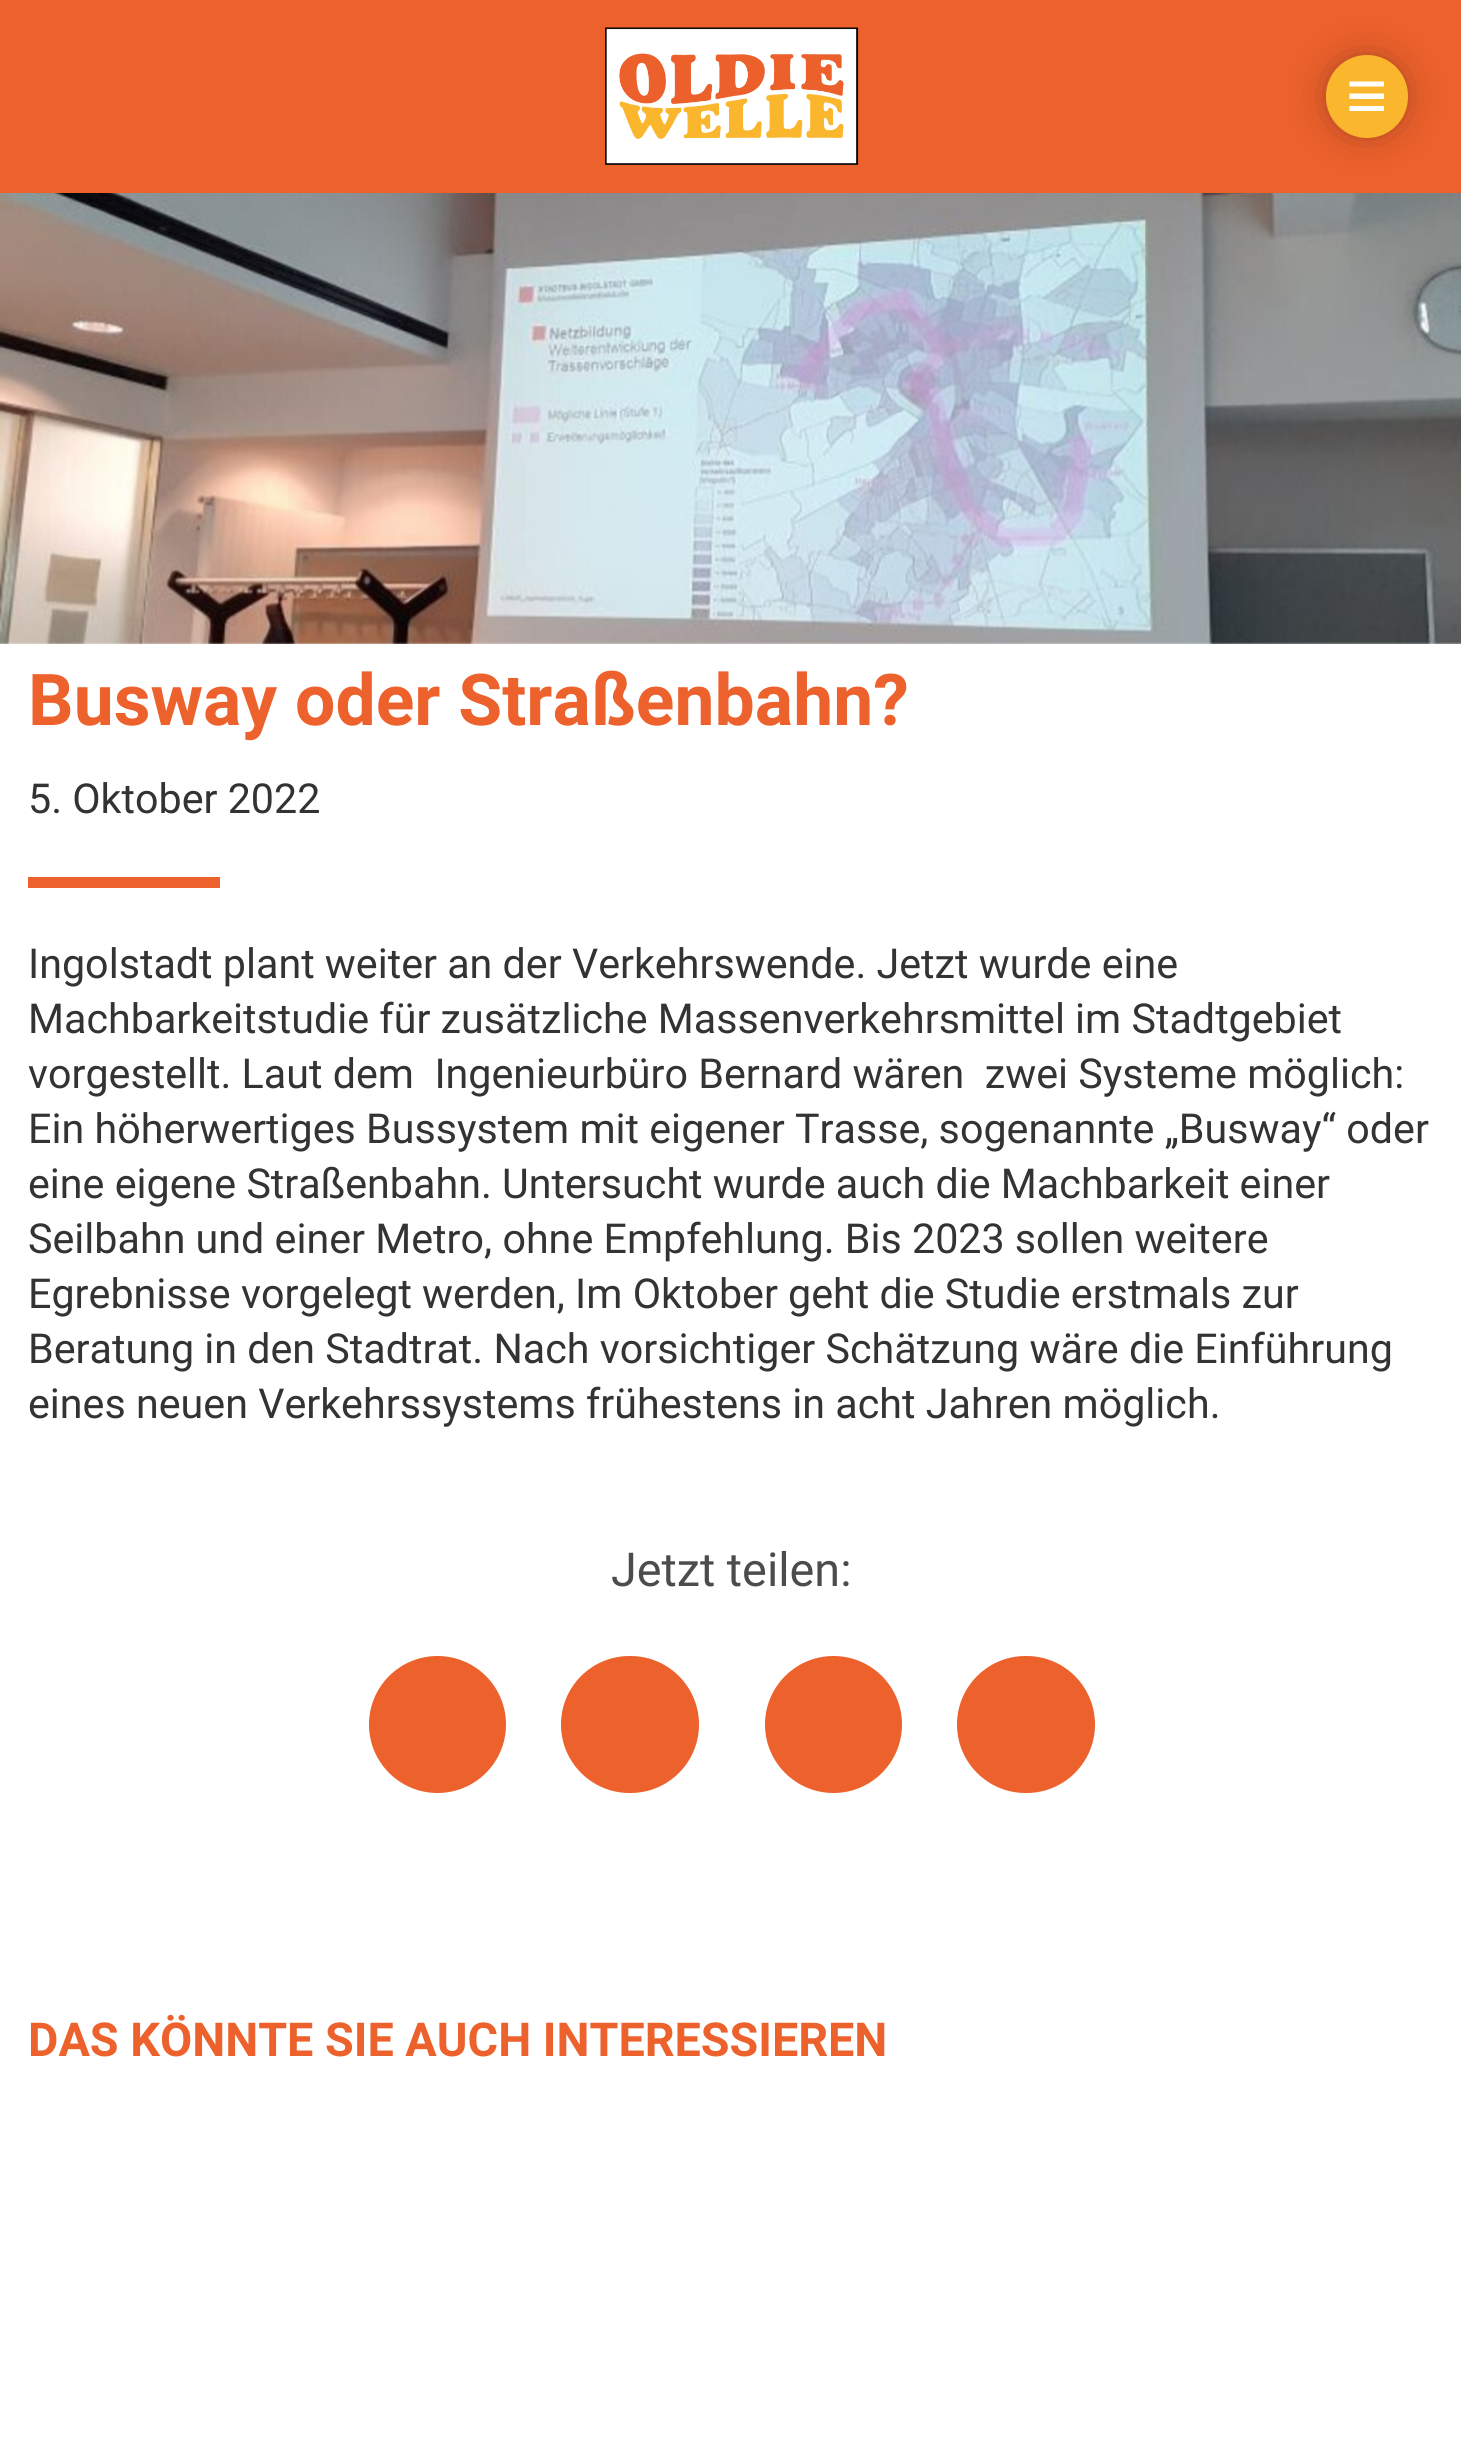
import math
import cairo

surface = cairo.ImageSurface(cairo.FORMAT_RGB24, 1461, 2453)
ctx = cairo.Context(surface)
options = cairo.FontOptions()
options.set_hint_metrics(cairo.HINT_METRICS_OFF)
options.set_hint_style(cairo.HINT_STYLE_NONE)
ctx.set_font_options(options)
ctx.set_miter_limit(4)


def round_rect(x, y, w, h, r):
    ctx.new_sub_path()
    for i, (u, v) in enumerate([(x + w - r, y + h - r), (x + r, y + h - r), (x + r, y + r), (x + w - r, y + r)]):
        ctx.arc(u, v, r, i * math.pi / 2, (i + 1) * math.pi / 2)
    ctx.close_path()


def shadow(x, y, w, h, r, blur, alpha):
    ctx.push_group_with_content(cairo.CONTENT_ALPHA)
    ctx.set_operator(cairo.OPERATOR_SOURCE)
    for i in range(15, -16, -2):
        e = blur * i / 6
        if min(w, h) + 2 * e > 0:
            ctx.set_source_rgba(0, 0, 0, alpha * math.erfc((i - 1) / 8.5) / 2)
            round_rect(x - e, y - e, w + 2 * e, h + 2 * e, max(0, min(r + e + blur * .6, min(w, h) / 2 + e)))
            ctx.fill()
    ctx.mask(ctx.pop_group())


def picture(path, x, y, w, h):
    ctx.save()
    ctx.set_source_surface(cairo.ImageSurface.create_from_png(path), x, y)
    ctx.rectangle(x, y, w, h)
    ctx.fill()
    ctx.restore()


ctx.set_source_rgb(1, 1, 1)
ctx.paint()
ctx.set_source_rgb(0.925, 0.38, 0.173)
ctx.rectangle(0, 0, 1461, 193)
ctx.fill()
picture("img1.png", 605, 27, 254, 138)
ctx.set_source_rgb(0, 0, 0)
shadow(1339, 69, 55, 55, 27.5, 20.5, 0.5)
ctx.set_source_rgb(0.98, 0.718, 0.176)
round_rect(1326, 55, 82, 83, 41)
ctx.fill()
ctx.set_source_rgb(1, 1, 1)
ctx.new_path()
ctx.move_to(1349.5, 99)
ctx.line_to(1384, 99)
ctx.line_to(1384, 93.5)
ctx.line_to(1349.5, 93.5)
ctx.close_path()
ctx.move_to(1349.5, 111)
ctx.line_to(1384, 111)
ctx.line_to(1384, 106)
ctx.line_to(1349.5, 106)
ctx.close_path()
ctx.move_to(1349.5, 81.5)
ctx.line_to(1349.5, 86.5)
ctx.line_to(1384, 86.5)
ctx.line_to(1384, 81.5)
ctx.close_path()
ctx.fill()
picture("img2.png", 0, 193, 1461, 451)
ctx.select_font_face("Roboto", cairo.FONT_SLANT_NORMAL, cairo.FONT_WEIGHT_BOLD)
ctx.set_font_size(71.5)
ctx.set_source_rgb(0.925, 0.38, 0.173)
ctx.move_to(28, 725)
ctx.show_text("Busway oder Straßenbahn?")
ctx.select_font_face("Roboto")
ctx.set_font_size(41.25)
ctx.set_source_rgb(0.2, 0.2, 0.2)
ctx.move_to(28, 813)
ctx.show_text("5. Oktober 2022")
ctx.set_source_rgb(0.925, 0.38, 0.173)
ctx.rectangle(28, 877, 192, 11)
ctx.fill()
ctx.set_source_rgb(0.2, 0.2, 0.2)
ctx.move_to(28, 978)
ctx.show_text("Ingolstadt plant weiter an der Verkehrswende. Jetzt wurde eine")
ctx.move_to(28, 1033)
ctx.show_text("Machbarkeitstudie für zusätzliche Massenverkehrsmittel im Stadtgebiet")
ctx.move_to(28, 1088)
ctx.show_text("vorgestellt. Laut dem  Ingenieurbüro Bernard wären  zwei Systeme möglich:")
ctx.move_to(28, 1143)
ctx.show_text("Ein höherwertiges Bussystem mit eigener Trasse, sogenannte „Busway“ oder")
ctx.move_to(28, 1198)
ctx.show_text("eine eigene Straßenbahn. Untersucht wurde auch die Machbarkeit einer")
ctx.move_to(28, 1253)
ctx.show_text("Seilbahn und einer Metro, ohne Empfehlung. Bis 2023 sollen weitere")
ctx.move_to(28, 1308)
ctx.show_text("Egrebnisse vorgelegt werden, Im Oktober geht die Studie erstmals zur")
ctx.move_to(28, 1363)
ctx.show_text("Beratung in den Stadtrat. Nach vorsichtiger Schätzung wäre die Einführung")
ctx.move_to(28, 1418)
ctx.show_text("eines neuen Verkehrssystems frühestens in acht Jahren möglich.")
ctx.set_font_size(46.75)
ctx.set_source_rgb(0.294, 0.298, 0.302)
ctx.move_to(611, 1586)
ctx.show_text("Jetzt teilen:")
ctx.set_source_rgb(0.925, 0.38, 0.173)
ctx.new_path()
ctx.arc(437.5, 1724.5, 68.5, 0, 2 * math.pi)
ctx.fill()
round_rect(561, 1656, 138, 137, 68.5)
ctx.fill()
ctx.arc(833.5, 1724.5, 68.5, 0, 2 * math.pi)
ctx.fill()
round_rect(957, 1656, 138, 137, 68.5)
ctx.fill()
ctx.select_font_face("Roboto", cairo.FONT_SLANT_NORMAL, cairo.FONT_WEIGHT_BOLD)
ctx.move_to(28, 2056)
ctx.show_text("DAS KÖNNTE SIE AUCH INTERESSIEREN")
surface.write_to_png("page.png")
